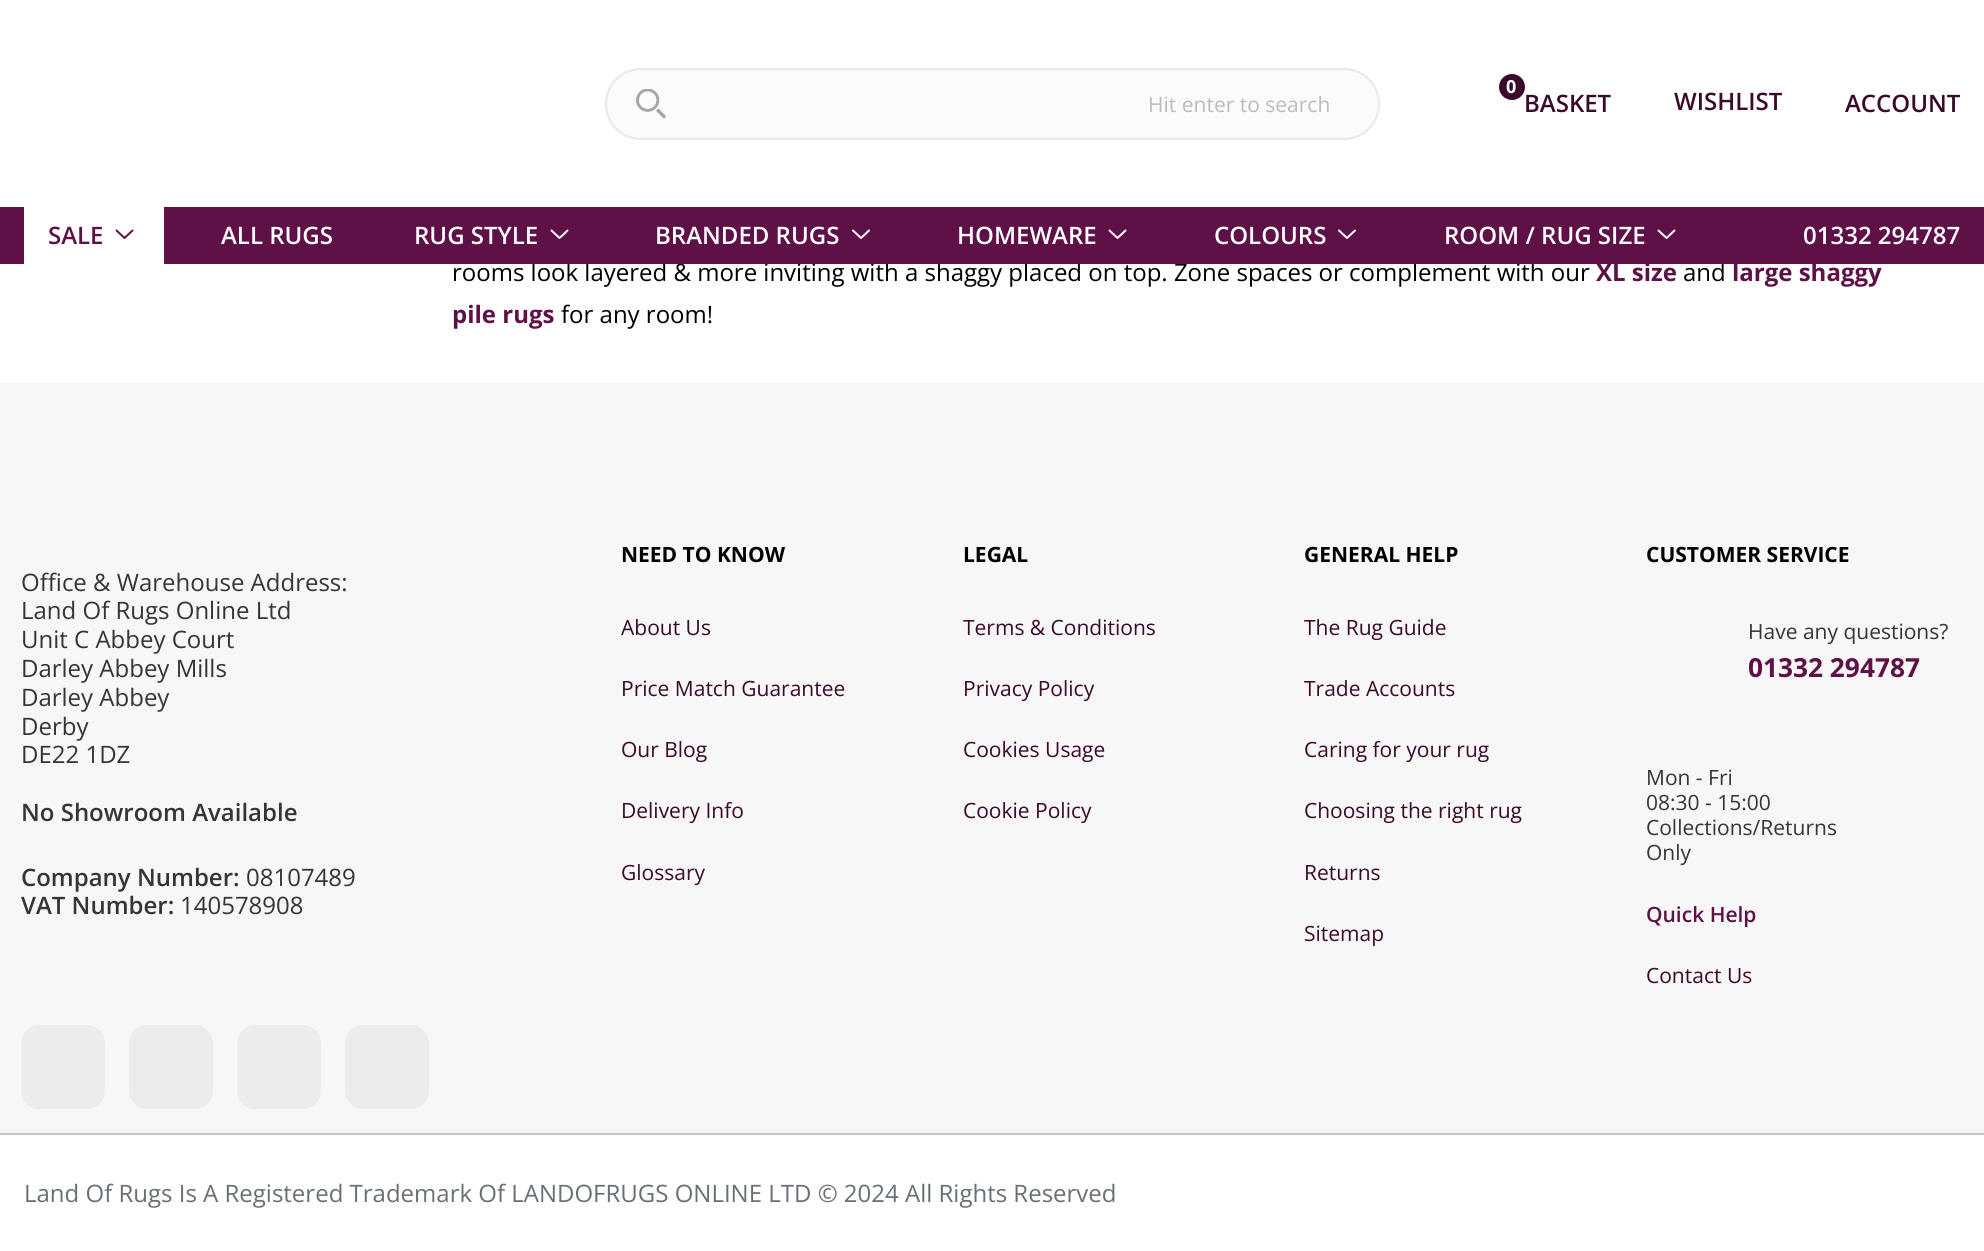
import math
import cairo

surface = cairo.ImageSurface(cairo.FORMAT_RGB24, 1984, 1251)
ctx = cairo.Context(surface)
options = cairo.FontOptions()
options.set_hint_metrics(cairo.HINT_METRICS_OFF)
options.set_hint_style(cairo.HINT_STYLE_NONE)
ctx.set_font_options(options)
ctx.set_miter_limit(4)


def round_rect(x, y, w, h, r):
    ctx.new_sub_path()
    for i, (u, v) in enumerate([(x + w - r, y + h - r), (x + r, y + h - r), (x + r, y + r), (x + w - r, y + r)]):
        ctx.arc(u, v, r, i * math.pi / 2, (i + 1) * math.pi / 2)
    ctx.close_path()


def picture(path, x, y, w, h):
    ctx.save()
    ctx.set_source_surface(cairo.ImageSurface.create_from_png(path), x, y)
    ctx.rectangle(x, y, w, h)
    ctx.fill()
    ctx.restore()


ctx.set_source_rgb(1, 1, 1)
ctx.paint()
ctx.set_source_rgb(0.988, 0.984, 0.984)
round_rect(605, 68, 775, 72, 36)
ctx.fill()
picture("img1.png", 636, 89, 30, 30)
round_rect(606, 69, 773, 70, 35)
ctx.set_source_rgb(0.914, 0.914, 0.914)
ctx.stroke()
ctx.select_font_face("Open Sans")
ctx.set_font_size(21)
ctx.set_source_rgb(0.733, 0.733, 0.733)
ctx.move_to(1148, 112)
ctx.show_text("Hit enter to search")
ctx.set_source_rgb(0.231, 0.039, 0.165)
ctx.new_path()
ctx.arc(1512, 87, 14, 0, 2 * math.pi)
ctx.fill_preserve()
ctx.set_source_rgb(1, 1, 1)
ctx.stroke()
ctx.select_font_face("Open Sans", cairo.FONT_SLANT_NORMAL, cairo.FONT_WEIGHT_BOLD)
ctx.set_font_size(18)
ctx.move_to(1506, 93)
ctx.show_text("0")
ctx.select_font_face("Open Sans SemiBold")
ctx.set_font_size(24)
ctx.set_source_rgb(0.231, 0.039, 0.165)
ctx.move_to(1524, 112)
ctx.show_text("BASKET")
ctx.move_to(1674, 110)
ctx.show_text("WISHLIST")
ctx.move_to(1845, 112)
ctx.show_text("ACCOUNT")
ctx.select_font_face("Open Sans")
ctx.set_source_rgb(0, 0, 0)
ctx.move_to(452, 281)
ctx.show_text("rooms look layered & more inviting with a shaggy placed on top. Zone spaces or complement with our")
ctx.move_to(1683, 281)
ctx.show_text("and")
ctx.set_source_rgb(0.373, 0.067, 0.278)
ctx.rectangle(0, 207, 1984, 57)
ctx.fill()
ctx.set_source_rgb(1, 1, 1)
ctx.rectangle(24, 207, 140, 57)
ctx.fill()
ctx.select_font_face("Open Sans SemiBold")
ctx.set_source_rgb(0.373, 0.067, 0.278)
ctx.move_to(48, 244)
ctx.show_text("SALE")
picture("img2.png", 115, 229, 19, 10)
ctx.set_source_rgb(1, 1, 1)
ctx.move_to(221, 244)
ctx.show_text("ALL RUGS")
ctx.move_to(414, 244)
ctx.show_text("RUG STYLE")
picture("img3.png", 550, 229, 19, 10)
ctx.move_to(655, 244)
ctx.show_text("BRANDED RUGS")
picture("img4.png", 852, 229, 18, 10)
ctx.move_to(957, 244)
ctx.show_text("HOMEWARE")
picture("img3.png", 1108, 229, 19, 10)
ctx.move_to(1214, 244)
ctx.show_text("COLOURS")
picture("img4.png", 1338, 229, 18, 10)
ctx.move_to(1444, 244)
ctx.show_text("ROOM / RUG SIZE")
picture("img3.png", 1657, 229, 19, 10)
ctx.move_to(1803, 244)
ctx.show_text("01332 294787")
ctx.select_font_face("Open Sans", cairo.FONT_SLANT_NORMAL, cairo.FONT_WEIGHT_BOLD)
ctx.set_source_rgb(0.373, 0.067, 0.278)
ctx.move_to(1596, 281)
ctx.show_text("XL size")
ctx.move_to(1732, 281)
ctx.show_text("large shaggy")
ctx.move_to(452, 323)
ctx.show_text("pile rugs")
ctx.select_font_face("Open Sans")
ctx.set_source_rgb(0, 0, 0)
ctx.move_to(561, 323)
ctx.show_text("for any room!")
ctx.set_source_rgb(0.965, 0.965, 0.965)
ctx.rectangle(0, 383, 1984, 750)
ctx.fill()
ctx.set_source_rgb(0.208, 0.208, 0.208)
ctx.move_to(21, 591)
ctx.show_text("Office & Warehouse Address:")
ctx.move_to(21, 619)
ctx.show_text("Land Of Rugs Online Ltd")
ctx.move_to(21, 648)
ctx.show_text("Unit C Abbey Court")
ctx.move_to(21, 677)
ctx.show_text("Darley Abbey Mills")
ctx.move_to(21, 706)
ctx.show_text("Darley Abbey")
ctx.move_to(21, 735)
ctx.show_text("Derby")
ctx.move_to(21, 763)
ctx.show_text("DE22 1DZ")
ctx.select_font_face("Open Sans SemiBold")
ctx.move_to(21, 821)
ctx.show_text("No Showroom Available")
ctx.move_to(21, 886)
ctx.show_text("Company Number:")
ctx.select_font_face("Open Sans")
ctx.move_to(246, 886)
ctx.show_text("08107489")
ctx.select_font_face("Open Sans SemiBold")
ctx.move_to(21, 914)
ctx.show_text("VAT Number:")
ctx.select_font_face("Open Sans")
ctx.move_to(180, 914)
ctx.show_text("140578908")
ctx.select_font_face("Open Sans", cairo.FONT_SLANT_NORMAL, cairo.FONT_WEIGHT_BOLD)
ctx.set_font_size(21)
ctx.set_source_rgb(0, 0, 0)
ctx.move_to(621, 562)
ctx.show_text("NEED TO KNOW")
ctx.select_font_face("Open Sans")
ctx.set_source_rgb(0.231, 0.039, 0.165)
ctx.move_to(621, 635)
ctx.show_text("About Us")
ctx.move_to(621, 696)
ctx.show_text("Price Match Guarantee")
ctx.move_to(621, 757)
ctx.show_text("Our Blog")
ctx.move_to(621, 818)
ctx.show_text("Delivery Info")
ctx.move_to(621, 880)
ctx.show_text("Glossary")
ctx.select_font_face("Open Sans", cairo.FONT_SLANT_NORMAL, cairo.FONT_WEIGHT_BOLD)
ctx.set_source_rgb(0, 0, 0)
ctx.move_to(963, 562)
ctx.show_text("LEGAL")
ctx.select_font_face("Open Sans")
ctx.set_source_rgb(0.231, 0.039, 0.165)
ctx.move_to(963, 635)
ctx.show_text("Terms & Conditions")
ctx.move_to(963, 696)
ctx.show_text("Privacy Policy")
ctx.move_to(963, 757)
ctx.show_text("Cookies Usage")
ctx.move_to(963, 818)
ctx.show_text("Cookie Policy")
ctx.select_font_face("Open Sans", cairo.FONT_SLANT_NORMAL, cairo.FONT_WEIGHT_BOLD)
ctx.set_source_rgb(0, 0, 0)
ctx.move_to(1304, 562)
ctx.show_text("GENERAL HELP")
ctx.select_font_face("Open Sans")
ctx.set_source_rgb(0.231, 0.039, 0.165)
ctx.move_to(1304, 635)
ctx.show_text("The Rug Guide")
ctx.move_to(1304, 696)
ctx.show_text("Trade Accounts")
ctx.move_to(1304, 757)
ctx.show_text("Caring for your rug")
ctx.move_to(1304, 818)
ctx.show_text("Choosing the right rug")
ctx.move_to(1304, 880)
ctx.show_text("Returns")
ctx.move_to(1304, 941)
ctx.show_text("Sitemap")
ctx.select_font_face("Open Sans", cairo.FONT_SLANT_NORMAL, cairo.FONT_WEIGHT_BOLD)
ctx.set_source_rgb(0, 0, 0)
ctx.move_to(1646, 562)
ctx.show_text("CUSTOMER SERVICE")
ctx.select_font_face("Open Sans")
ctx.set_source_rgb(0.208, 0.208, 0.208)
ctx.move_to(1748, 639)
ctx.show_text("Have any questions?")
ctx.select_font_face("Open Sans", cairo.FONT_SLANT_NORMAL, cairo.FONT_WEIGHT_BOLD)
ctx.set_font_size(26.25)
ctx.set_source_rgb(0.373, 0.067, 0.278)
ctx.move_to(1748, 677)
ctx.show_text("01332 294787")
ctx.select_font_face("Open Sans")
ctx.set_font_size(21)
ctx.set_source_rgb(0.208, 0.208, 0.208)
ctx.move_to(1646, 785)
ctx.show_text("Mon - Fri")
ctx.move_to(1646, 810)
ctx.show_text("08:30 - 15:00")
ctx.move_to(1646, 835)
ctx.show_text("Collections/Returns")
ctx.move_to(1646, 860)
ctx.show_text("Only")
ctx.select_font_face("Open Sans SemiBold")
ctx.set_source_rgb(0.373, 0.067, 0.278)
ctx.move_to(1646, 922)
ctx.show_text("Quick Help")
ctx.select_font_face("Open Sans")
ctx.set_source_rgb(0.231, 0.039, 0.165)
ctx.move_to(1646, 983)
ctx.show_text("Contact Us")
ctx.set_source_rgb(0.925, 0.925, 0.925)
round_rect(21, 1025, 84, 84, 18)
ctx.fill()
round_rect(129, 1025, 84, 84, 18)
ctx.fill()
round_rect(237, 1025, 84, 84, 18)
ctx.fill()
round_rect(345, 1025, 84, 84, 18)
ctx.fill()
ctx.set_source_rgb(0.769, 0.769, 0.769)
ctx.rectangle(0, 1133, 1984, 2)
ctx.fill()
ctx.set_font_size(24)
ctx.set_source_rgb(0.408, 0.439, 0.463)
ctx.move_to(24, 1202)
ctx.show_text("Land Of Rugs Is A Registered Trademark Of LANDOFRUGS ONLINE LTD © 2024 All Rights Reserved")
surface.write_to_png("page.png")
